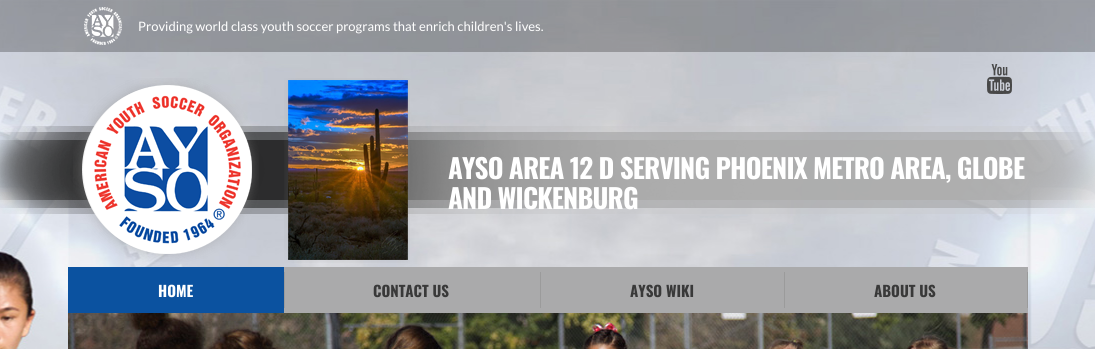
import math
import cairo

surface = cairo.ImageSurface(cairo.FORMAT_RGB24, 1095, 349)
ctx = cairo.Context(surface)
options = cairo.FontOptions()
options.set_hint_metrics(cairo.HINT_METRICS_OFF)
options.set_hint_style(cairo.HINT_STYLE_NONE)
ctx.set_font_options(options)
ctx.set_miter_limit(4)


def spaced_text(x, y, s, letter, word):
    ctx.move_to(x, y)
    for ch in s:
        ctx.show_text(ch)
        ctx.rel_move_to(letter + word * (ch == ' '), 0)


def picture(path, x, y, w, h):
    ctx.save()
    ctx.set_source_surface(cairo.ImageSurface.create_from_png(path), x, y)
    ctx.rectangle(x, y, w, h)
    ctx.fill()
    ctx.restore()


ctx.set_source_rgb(1, 1, 1)
ctx.paint()
picture("img1.png", 0, 0, 1095, 349)
ctx.set_source_rgba(0, 0, 0, 0.25)
ctx.rectangle(0, 0, 1095, 52)
ctx.fill()
picture("img2.png", 84, 7, 38, 38)
ctx.select_font_face("Lato")
ctx.set_font_size(13)
ctx.set_source_rgb(1, 1, 1)
ctx.move_to(138, 31)
ctx.show_text("Providing world class youth soccer programs that enrich children's lives.")
picture("img3.png", 987, 64, 25, 30)
picture("img4.png", 0, 126, 1095, 88)
picture("img5.png", 73, 78, 186, 184)
picture("img6.png", 284, 78, 126, 185)
ctx.select_font_face("Oswald", cairo.FONT_SLANT_NORMAL, cairo.FONT_WEIGHT_BOLD)
ctx.set_font_size(27)
spaced_text(448, 179, "AYSO AREA 12 D SERVING PHOENIX METRO AREA, GLOBE", -0.8, 0)
spaced_text(448, 209, "AND WICKENBURG", -0.8, 0)
ctx.set_source_rgb(0.667, 0.667, 0.671)
ctx.rectangle(284, 267, 744, 46)
ctx.fill()
ctx.set_source_rgb(0.043, 0.322, 0.627)
ctx.rectangle(68, 267, 216, 46)
ctx.fill()
ctx.set_font_size(15)
ctx.set_source_rgb(1, 1, 1)
ctx.move_to(158, 297)
ctx.show_text("HOME")
ctx.set_source_rgb(0.608, 0.608, 0.608)
ctx.rectangle(284, 272, 1, 36)
ctx.fill()
ctx.set_source_rgb(0.224, 0.224, 0.224)
ctx.move_to(373, 297)
ctx.show_text("CONTACT US")
ctx.set_source_rgb(0.608, 0.608, 0.608)
ctx.rectangle(540, 272, 1, 36)
ctx.fill()
ctx.set_source_rgb(0.224, 0.224, 0.224)
ctx.move_to(630, 297)
ctx.show_text("AYSO WIKI")
ctx.set_source_rgb(0.608, 0.608, 0.608)
ctx.rectangle(784, 272, 1, 36)
ctx.fill()
ctx.set_source_rgb(0.224, 0.224, 0.224)
ctx.move_to(874, 297)
ctx.show_text("ABOUT US")
ctx.set_source_rgb(0.608, 0.608, 0.608)
ctx.rectangle(1027, 272, 1, 36)
ctx.fill()
picture("img7.png", 68, 313, 960, 36)
surface.write_to_png("page.png")
